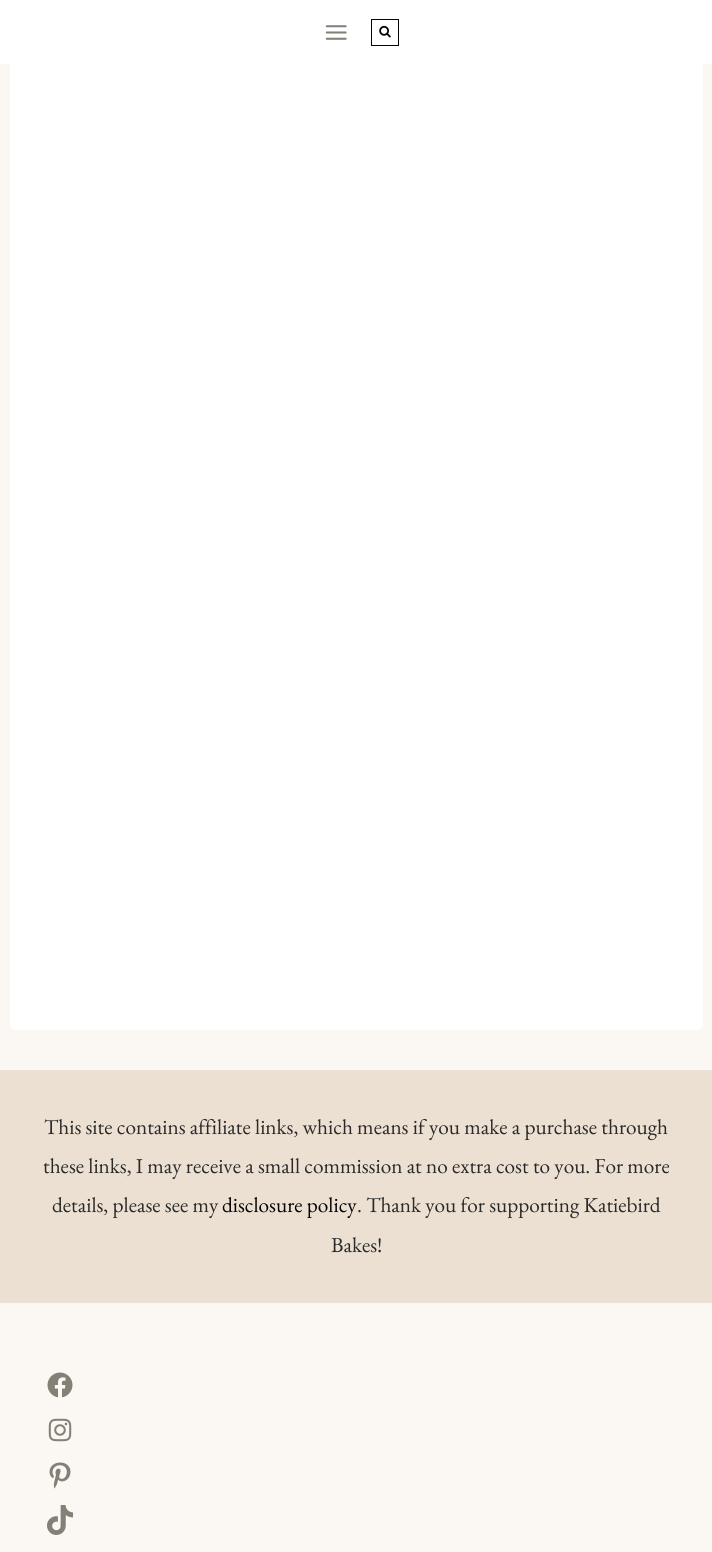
import math
import cairo

surface = cairo.ImageSurface(cairo.FORMAT_RGB24, 712, 1552)
ctx = cairo.Context(surface)
options = cairo.FontOptions()
options.set_hint_metrics(cairo.HINT_METRICS_OFF)
options.set_hint_style(cairo.HINT_STYLE_NONE)
ctx.set_font_options(options)
ctx.set_miter_limit(4)


def round_rect(x, y, w, h, r):
    ctx.new_sub_path()
    for i, (u, v) in enumerate([(x + w - r, y + h - r), (x + r, y + h - r), (x + r, y + r), (x + w - r, y + r)]):
        ctx.arc(u, v, r, i * math.pi / 2, (i + 1) * math.pi / 2)
    ctx.close_path()


def picture(path, x, y, w, h):
    ctx.save()
    ctx.set_source_surface(cairo.ImageSurface.create_from_png(path), x, y)
    ctx.rectangle(x, y, w, h)
    ctx.fill()
    ctx.restore()


ctx.set_source_rgb(0.984, 0.969, 0.953)
ctx.paint()
ctx.set_source_rgb(1, 1, 1)
round_rect(10, -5, 693, 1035, 5)
ctx.fill()
ctx.rectangle(0, 0, 712, 64)
ctx.fill()
picture("img1.png", 325, 25, 22, 15)
ctx.rectangle(371.5, 19.5, 27, 26)
ctx.set_source_rgb(0.012, 0.012, 0.012)
ctx.set_line_width(1)
ctx.stroke()
picture("img2.png", 379, 25, 12, 13)
ctx.set_source_rgb(0.925, 0.878, 0.824)
ctx.rectangle(0, 1070, 712, 233)
ctx.fill()
ctx.select_font_face("EB Garamond")
ctx.set_font_size(21.25)
ctx.set_source_rgb(0.161, 0.161, 0.161)
ctx.move_to(44, 1134)
ctx.show_text("This site contains affiliate links, which means if you make a purchase through")
ctx.move_to(43, 1173)
ctx.show_text("these links, I may receive a small commission at no extra cost to you. For more")
ctx.move_to(52, 1212)
ctx.show_text("details, please see my")
ctx.set_source_rgb(0.012, 0.012, 0.012)
ctx.move_to(222, 1212)
ctx.show_text("disclosure policy")
ctx.set_source_rgb(0.161, 0.161, 0.161)
ctx.move_to(357, 1212)
ctx.show_text(". Thank you for supporting Katiebird")
ctx.move_to(331, 1252)
ctx.show_text("Bakes!")
picture("img3.png", 47, 1372, 26, 26)
picture("img4.png", 48, 1418, 24, 24)
picture("img5.png", 49, 1462, 22, 27)
picture("img6.png", 47, 1505, 27, 30)
surface.write_to_png("page.png")
